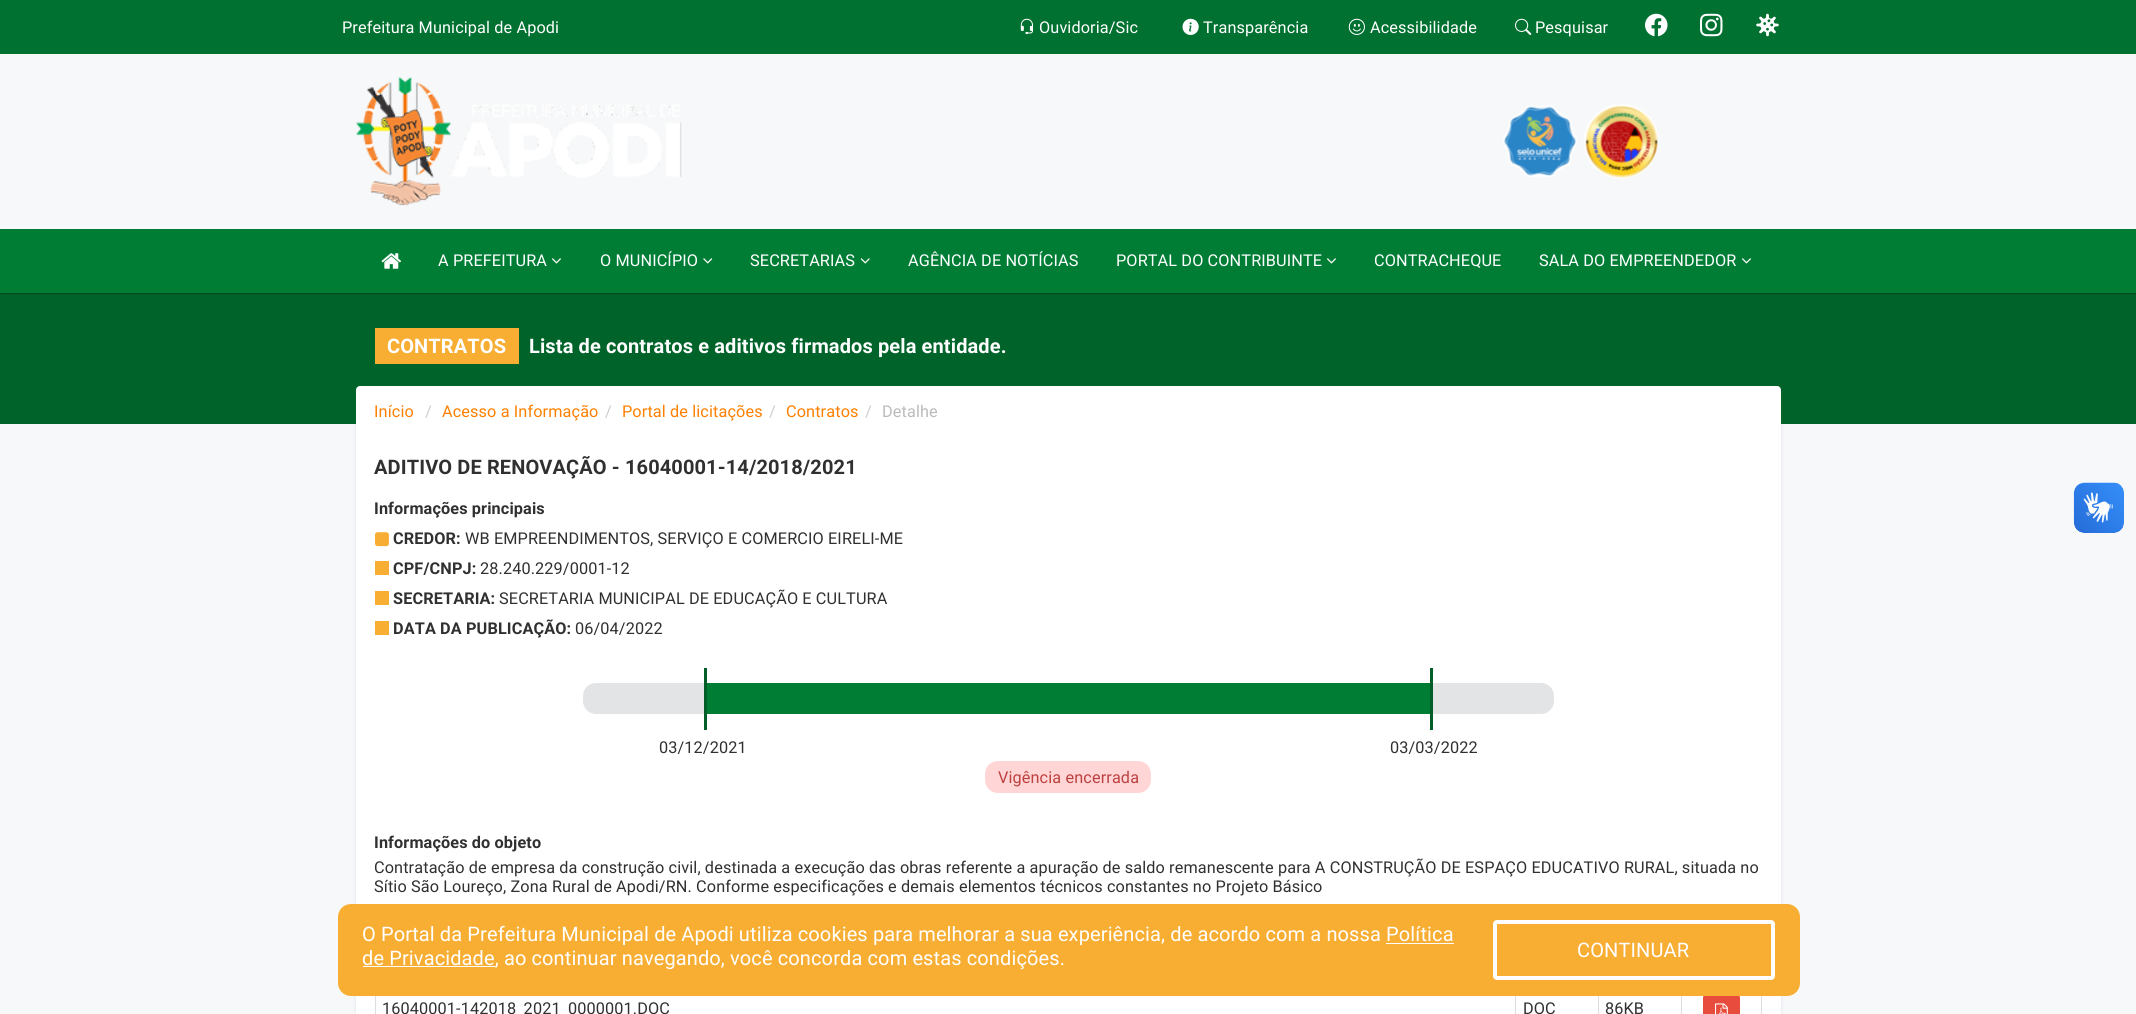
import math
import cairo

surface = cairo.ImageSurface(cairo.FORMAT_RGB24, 2136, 1014)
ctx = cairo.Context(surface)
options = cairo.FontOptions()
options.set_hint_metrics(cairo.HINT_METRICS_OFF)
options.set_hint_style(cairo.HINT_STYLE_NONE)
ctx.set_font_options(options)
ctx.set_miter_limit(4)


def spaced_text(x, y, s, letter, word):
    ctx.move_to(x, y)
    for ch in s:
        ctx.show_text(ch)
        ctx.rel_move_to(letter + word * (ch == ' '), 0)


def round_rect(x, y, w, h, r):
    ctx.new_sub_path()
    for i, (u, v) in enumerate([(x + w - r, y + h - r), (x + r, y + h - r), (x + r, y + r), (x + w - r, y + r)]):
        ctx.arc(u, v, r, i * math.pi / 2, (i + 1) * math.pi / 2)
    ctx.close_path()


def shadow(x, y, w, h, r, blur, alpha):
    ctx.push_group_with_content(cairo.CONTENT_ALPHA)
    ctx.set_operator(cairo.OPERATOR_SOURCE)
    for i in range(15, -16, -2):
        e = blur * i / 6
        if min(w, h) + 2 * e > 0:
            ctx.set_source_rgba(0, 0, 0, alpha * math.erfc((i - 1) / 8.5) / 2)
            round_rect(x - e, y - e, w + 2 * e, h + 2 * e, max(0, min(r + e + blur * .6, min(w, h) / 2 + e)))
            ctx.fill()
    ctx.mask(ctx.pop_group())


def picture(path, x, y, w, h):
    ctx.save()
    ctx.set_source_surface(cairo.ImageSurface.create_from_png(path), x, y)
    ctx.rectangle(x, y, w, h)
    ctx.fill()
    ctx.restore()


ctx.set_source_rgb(0.965, 0.969, 0.973)
ctx.paint()
ctx.set_source_rgb(0.012, 0, 0.278)
shadow(356, 388, 1425, 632, 0, 2, 0.09)
ctx.set_source_rgb(0, 0.392, 0.165)
ctx.rectangle(0, 293, 2136, 131)
ctx.fill()
ctx.save()
ctx.rectangle(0, 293, 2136, 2)
ctx.clip()
ctx.set_source_rgb(0, 0, 0)
shadow(0, 1, 2136, 293, 0, 1, 0.3)
ctx.restore()
ctx.set_source_rgb(0, 0.443, 0.188)
ctx.rectangle(0, 0, 2136, 54)
ctx.fill()
ctx.select_font_face("Roboto")
ctx.set_font_size(16.25)
ctx.set_source_rgb(1, 1, 1)
spaced_text(342, 33, "Prefeitura Municipal de Apodi", 0.12, 0)
picture("img1.png", 1020, 18, 13, 16)
spaced_text(1039, 33, "Ouvidoria/Sic", 0.12, 0)
picture("img2.png", 1182, 18, 17, 17)
spaced_text(1203, 33, "Transparência", 0.12, 0)
picture("img3.png", 1348, 18, 17, 17)
spaced_text(1370, 33, "Acessibilidade", 0.12, 0)
picture("img4.png", 1515, 18, 17, 17)
spaced_text(1535, 33, "Pesquisar", 0.12, 0)
picture("img5.png", 1645, 13, 23, 24)
picture("img6.png", 1700, 13, 23, 24)
picture("img7.png", 1756, 13, 23, 24)
picture("img8.png", 356, 77, 326, 129)
picture("img9.png", 1503, 105, 74, 72)
picture("img10.png", 1584, 104, 75, 75)
ctx.set_source_rgb(0, 0.49, 0.208)
ctx.rectangle(0, 229, 2136, 64)
ctx.fill()
picture("img11.png", 381, 253, 20, 16)
ctx.set_source_rgb(1, 1, 1)
spaced_text(438, 266, "A PREFEITURA", 0.12, 0)
picture("img12.png", 552, 258, 9, 6)
spaced_text(600, 266, "O MUNICÍPIO", 0.12, 0)
picture("img13.png", 703, 258, 10, 6)
spaced_text(750, 266, "SECRETARIAS", 0.12, 0)
picture("img14.png", 860, 258, 10, 6)
spaced_text(908, 266, "AGÊNCIA DE NOTÍCIAS", 0.12, 0)
spaced_text(1116, 266, "PORTAL DO CONTRIBUINTE", 0.12, 0)
picture("img12.png", 1327, 258, 9, 6)
spaced_text(1374, 266, "CONTRACHEQUE", 0.12, 0)
spaced_text(1539, 266, "SALA DO EMPREENDEDOR", 0.12, 0)
picture("img12.png", 1742, 258, 9, 6)
ctx.set_source_rgb(0.969, 0.678, 0.2)
ctx.rectangle(375, 328, 144, 36)
ctx.fill()
ctx.select_font_face("Roboto", cairo.FONT_SLANT_NORMAL, cairo.FONT_WEIGHT_BOLD)
ctx.set_font_size(20)
ctx.set_source_rgb(1, 1, 1)
spaced_text(387, 353, "CONTRATOS", 0.12, 0)
spaced_text(529, 353, "Lista de contratos e aditivos firmados pela entidade.", 0.12, 0)
ctx.rectangle(356, 432, 1425, 582)
ctx.fill()
round_rect(356, 386, 1425, 50, 4)
ctx.fill()
ctx.select_font_face("Roboto")
ctx.set_font_size(16.25)
ctx.set_source_rgb(1, 0.502, 0)
spaced_text(374, 417, "Início", 0.12, 0)
ctx.set_source_rgb(0.8, 0.8, 0.8)
spaced_text(425, 417, "/", 0.12, 0)
ctx.set_source_rgb(1, 0.502, 0)
spaced_text(442, 417, "Acesso a Informação", 0.12, 0)
ctx.set_source_rgb(0.8, 0.8, 0.8)
spaced_text(605, 417, "/", 0.12, 0)
ctx.set_source_rgb(1, 0.502, 0)
spaced_text(622, 417, "Portal de licitações", 0.12, 0)
ctx.set_source_rgb(0.8, 0.8, 0.8)
spaced_text(769, 417, "/", 0.12, 0)
ctx.set_source_rgb(1, 0.502, 0)
spaced_text(786, 417, "Contratos", 0.12, 0)
ctx.set_source_rgb(0.8, 0.8, 0.8)
spaced_text(865, 417, "/", 0.12, 0)
ctx.set_source_rgb(0.733, 0.733, 0.733)
spaced_text(882, 417, "Detalhe", 0.12, 0)
ctx.select_font_face("Roboto", cairo.FONT_SLANT_NORMAL, cairo.FONT_WEIGHT_BOLD)
ctx.set_font_size(20)
ctx.set_source_rgb(0.188, 0.188, 0.188)
spaced_text(374, 474, "ADITIVO DE RENOVAÇÃO - 16040001-14/2018/2021", 0.12, 0)
ctx.set_font_size(16.25)
spaced_text(374, 514, "Informações principais", 0.12, 0)
picture("img15.png", 375, 532, 14, 15)
spaced_text(393, 544, "CREDOR:", 0.12, 0)
ctx.select_font_face("Roboto")
spaced_text(465, 544, "WB EMPREENDIMENTOS, SERVIÇO E COMERCIO EIRELI-ME", 0.12, 0)
ctx.set_source_rgb(0.969, 0.678, 0.2)
ctx.rectangle(375, 561, 14, 14)
ctx.fill()
ctx.select_font_face("Roboto", cairo.FONT_SLANT_NORMAL, cairo.FONT_WEIGHT_BOLD)
ctx.set_source_rgb(0.188, 0.188, 0.188)
spaced_text(393, 574, "CPF/CNPJ:", 0.12, 0)
ctx.select_font_face("Roboto")
spaced_text(480, 574, "28.240.229/0001-12", 0.12, 0)
ctx.set_source_rgb(0.969, 0.678, 0.2)
ctx.rectangle(375, 591, 14, 14)
ctx.fill()
ctx.select_font_face("Roboto", cairo.FONT_SLANT_NORMAL, cairo.FONT_WEIGHT_BOLD)
ctx.set_source_rgb(0.188, 0.188, 0.188)
spaced_text(393, 604, "SECRETARIA:", 0.12, 0)
ctx.select_font_face("Roboto")
spaced_text(499, 604, "SECRETARIA MUNICIPAL DE EDUCAÇÃO E CULTURA", 0.12, 0)
ctx.set_source_rgb(0.969, 0.678, 0.2)
ctx.rectangle(375, 621, 14, 14)
ctx.fill()
ctx.select_font_face("Roboto", cairo.FONT_SLANT_NORMAL, cairo.FONT_WEIGHT_BOLD)
ctx.set_source_rgb(0.188, 0.188, 0.188)
spaced_text(393, 634, "DATA DA PUBLICAÇÃO:", 0.12, 0)
ctx.select_font_face("Roboto")
spaced_text(575, 634, "06/04/2022", 0.12, 0)
ctx.set_source_rgb(0.89, 0.894, 0.902)
round_rect(583, 683, 971, 31, 13)
ctx.fill()
ctx.set_source_rgb(0, 0.369, 0.157)
ctx.rectangle(1430, 668, 3, 62)
ctx.fill()
ctx.rectangle(704, 668, 3, 62)
ctx.fill()
ctx.set_source_rgb(0, 0.49, 0.208)
ctx.rectangle(707, 683, 723, 31)
ctx.fill()
ctx.set_source_rgb(0.188, 0.188, 0.188)
spaced_text(659, 753, "03/12/2021", 0.12, 0)
spaced_text(1390, 753, "03/03/2022", 0.12, 0)
ctx.set_source_rgb(1, 0.835, 0.835)
round_rect(985, 761, 166, 32, 13)
ctx.fill()
ctx.set_source_rgb(0.741, 0.255, 0.255)
spaced_text(998, 783, "Vigência encerrada", 0.12, 0)
ctx.select_font_face("Roboto", cairo.FONT_SLANT_NORMAL, cairo.FONT_WEIGHT_BOLD)
ctx.set_source_rgb(0.188, 0.188, 0.188)
spaced_text(374, 848, "Informações do objeto", 0.12, 0)
ctx.select_font_face("Roboto")
spaced_text(374, 873, "Contratação de empresa da construção civil, destinada a execução das obras referente a apuração de saldo remanescente para A CONSTRUÇÃO DE ESPAÇO EDUCATIVO RURAL, situada no", 0.12, 0)
spaced_text(374, 892, "Sítio São Loureço, Zona Rural de Apodi/RN. Conforme especificações e demais elementos técnicos constantes no Projeto Básico", 0.12, 0)
ctx.set_source_rgb(0.867, 0.867, 0.867)
ctx.rectangle(1761, 996, 1, 18)
ctx.fill()
ctx.rectangle(375, 996, 1, 18)
ctx.fill()
ctx.set_source_rgb(0.188, 0.188, 0.188)
spaced_text(382, 1014, "16040001-142018_2021_0000001.DOC", 0.12, 0)
ctx.set_source_rgb(0.867, 0.867, 0.867)
ctx.rectangle(1515, 996, 1, 18)
ctx.fill()
ctx.set_source_rgb(0.188, 0.188, 0.188)
spaced_text(1523, 1014, "DOC", 0.12, 0)
ctx.set_source_rgb(0.867, 0.867, 0.867)
ctx.rectangle(1598, 996, 1, 18)
ctx.fill()
ctx.set_source_rgb(0.188, 0.188, 0.188)
spaced_text(1605, 1014, "86KB", 0.12, 0)
ctx.set_source_rgb(0.867, 0.867, 0.867)
ctx.rectangle(1681, 996, 1, 18)
ctx.fill()
ctx.set_source_rgb(0.906, 0.298, 0.235)
round_rect(1703, 994, 37, 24, 4)
ctx.fill()
picture("img16.png", 1715, 1003, 13, 11)
picture("img17.png", 2073, 482, 51, 51)
picture("img18.png", 2074, 483, 50, 50)
ctx.set_source_rgb(0.969, 0.678, 0.2)
round_rect(338, 904, 1462, 92, 13)
ctx.fill()
ctx.set_font_size(20)
ctx.set_source_rgb(1, 1, 1)
spaced_text(362, 941, "O Portal da Prefeitura Municipal de Apodi utiliza cookies para melhorar a sua experiência, de acordo com a nossa Política", 0.12, 0)
ctx.rectangle(363, 966, 132, 1)
ctx.fill()
spaced_text(362, 965, "de Privacidade, ao continuar navegando, você concorda com estas condições.", 0.12, 0)
ctx.rectangle(1386, 943, 68, 1)
ctx.fill()
round_rect(1495, 922, 278, 56, 2)
ctx.set_line_width(4)
ctx.stroke()
spaced_text(1577, 957, "CONTINUAR", 0.12, 0)
surface.write_to_png("page.png")
